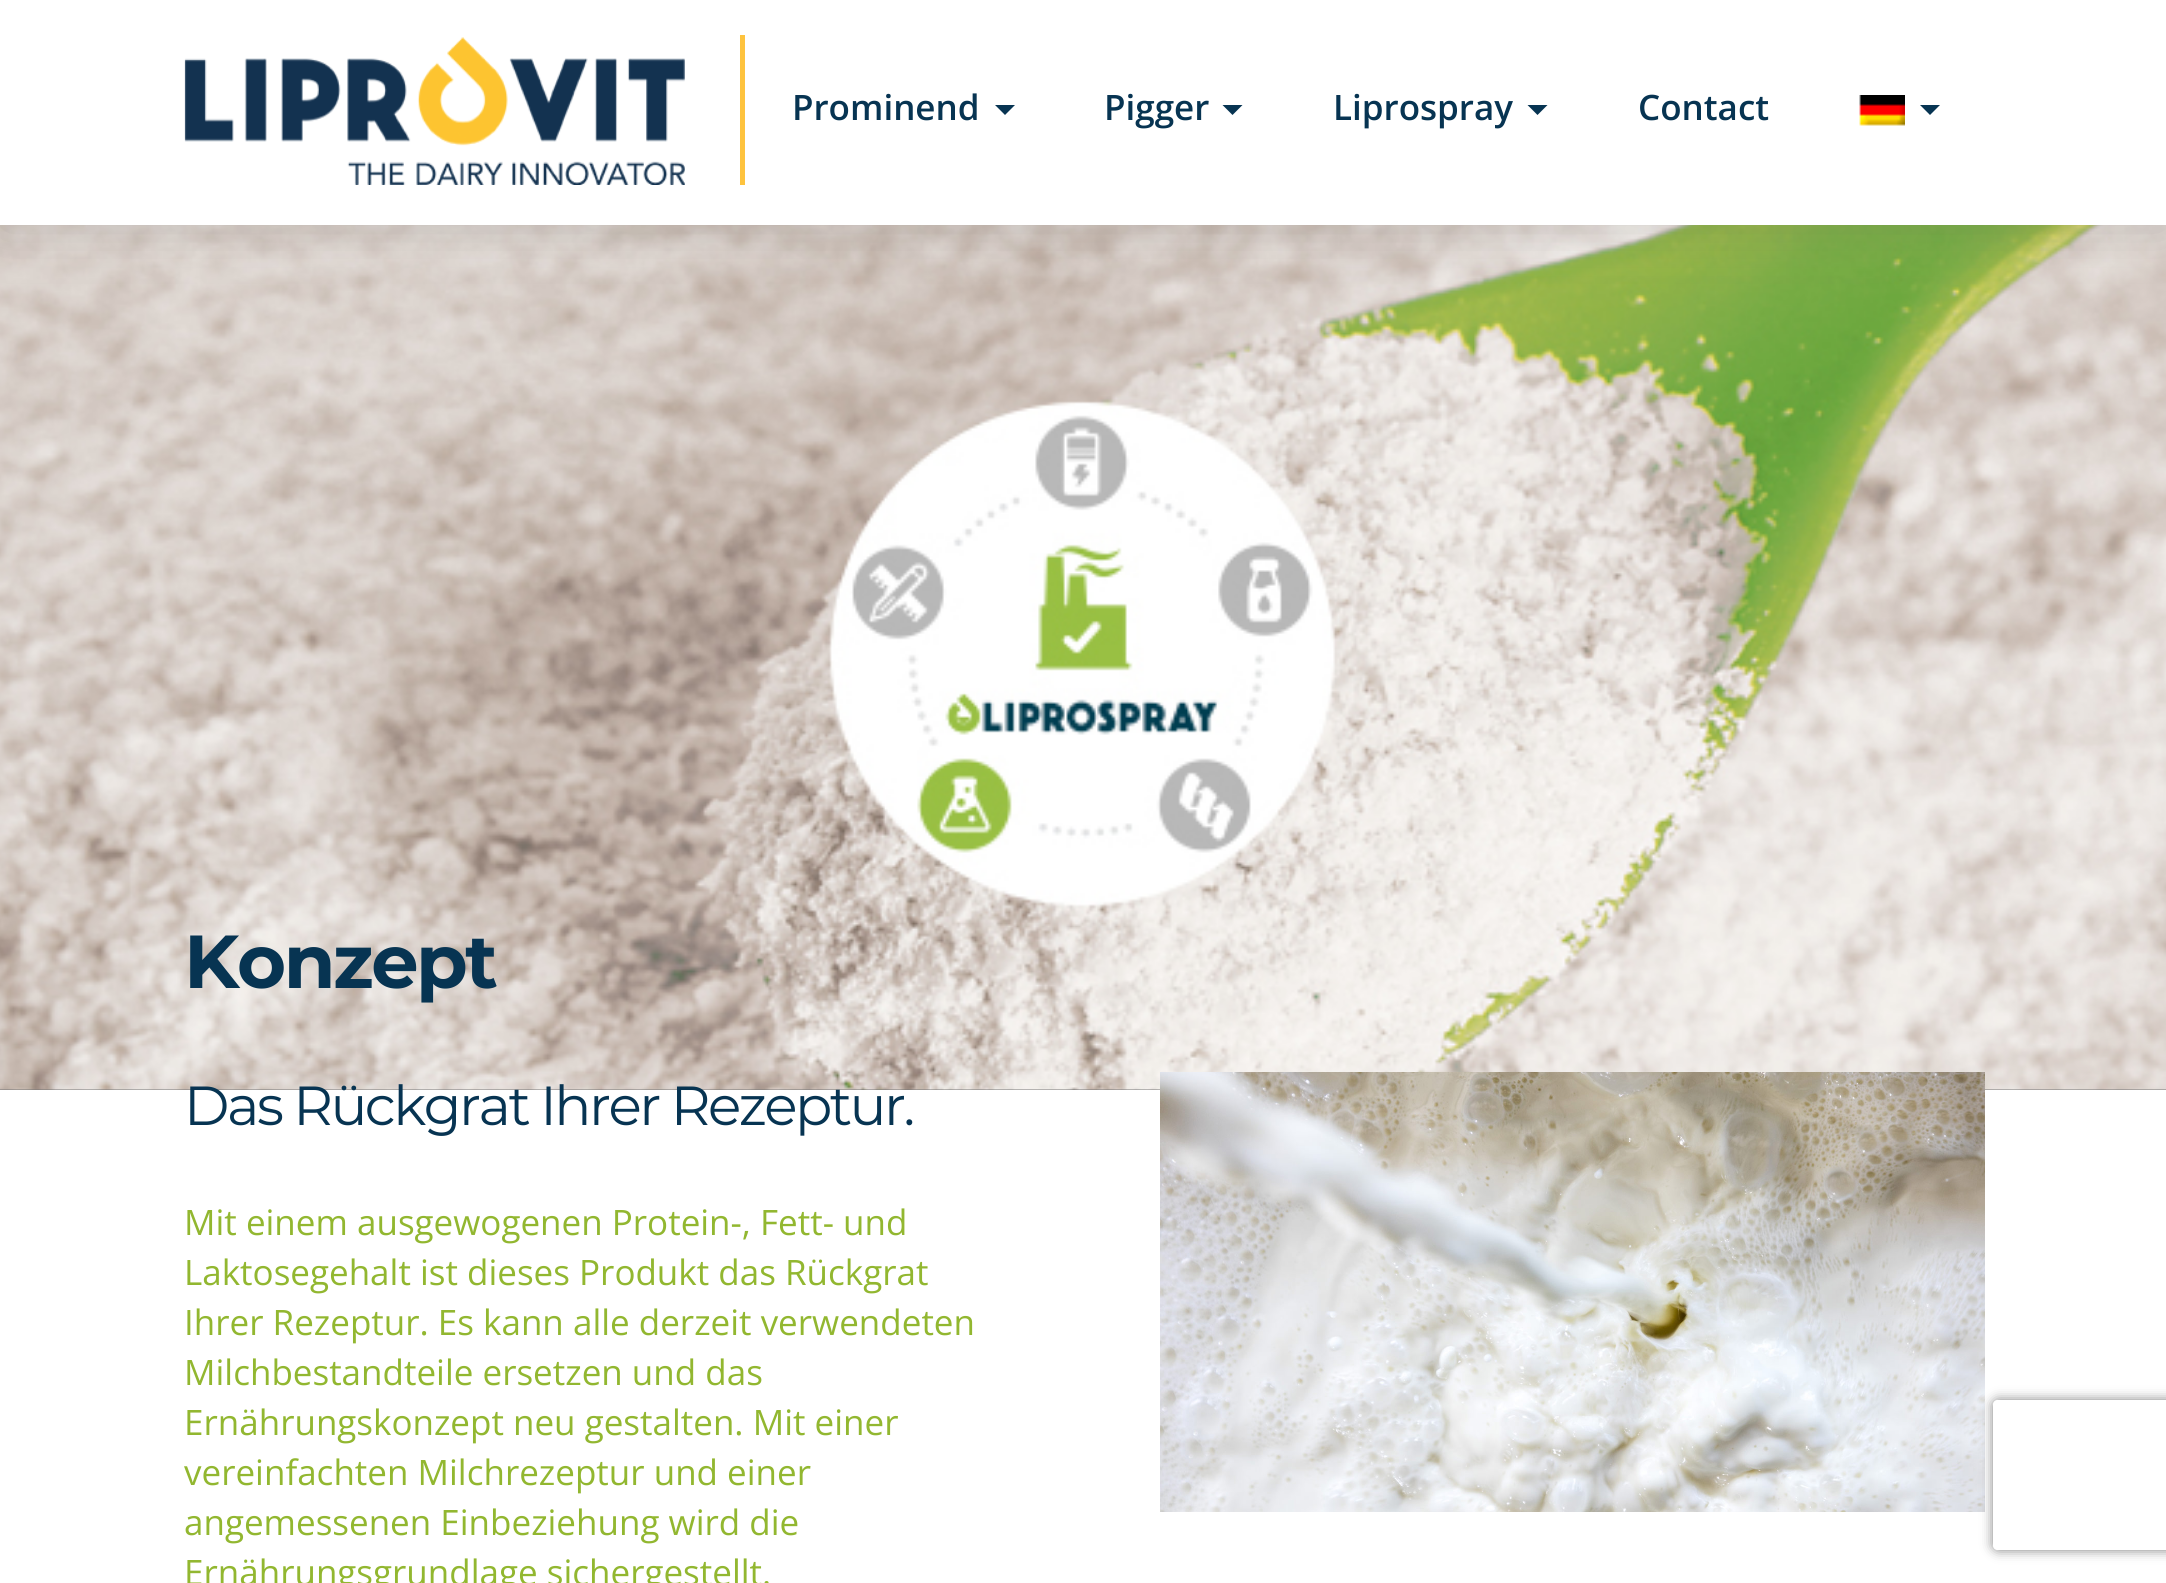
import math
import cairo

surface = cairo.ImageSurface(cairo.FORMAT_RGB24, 2166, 1583)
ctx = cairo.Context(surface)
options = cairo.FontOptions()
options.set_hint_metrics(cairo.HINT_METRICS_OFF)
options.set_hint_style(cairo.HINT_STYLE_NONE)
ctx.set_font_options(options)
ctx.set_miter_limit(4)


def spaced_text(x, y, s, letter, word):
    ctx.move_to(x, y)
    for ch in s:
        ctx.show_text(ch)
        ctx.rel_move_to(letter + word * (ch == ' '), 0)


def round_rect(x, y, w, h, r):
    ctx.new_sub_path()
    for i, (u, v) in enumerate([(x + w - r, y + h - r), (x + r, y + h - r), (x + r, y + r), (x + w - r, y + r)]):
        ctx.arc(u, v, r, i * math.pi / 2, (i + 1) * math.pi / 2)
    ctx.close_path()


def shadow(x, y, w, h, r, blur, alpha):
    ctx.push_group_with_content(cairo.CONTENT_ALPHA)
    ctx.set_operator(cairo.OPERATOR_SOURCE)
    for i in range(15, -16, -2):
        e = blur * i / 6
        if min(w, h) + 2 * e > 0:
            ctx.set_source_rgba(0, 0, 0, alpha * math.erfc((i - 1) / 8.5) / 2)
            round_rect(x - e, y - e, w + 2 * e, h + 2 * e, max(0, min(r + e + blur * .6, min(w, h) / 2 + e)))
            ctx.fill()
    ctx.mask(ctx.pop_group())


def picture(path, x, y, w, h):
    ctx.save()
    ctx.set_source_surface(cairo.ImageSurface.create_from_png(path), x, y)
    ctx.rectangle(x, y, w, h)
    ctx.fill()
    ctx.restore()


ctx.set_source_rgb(1, 1, 1)
ctx.paint()
ctx.set_source_rgb(0.467, 0.467, 0.467)
ctx.rectangle(0, 1089, 2166, 1)
ctx.fill()
picture("img3.png", 0, 225, 2166, 865)
ctx.set_source_rgb(0.392, 0.392, 0.392)
shadow(0, 5, 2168, 225, 0, 25, 0.19)
ctx.set_source_rgb(1, 1, 1)
ctx.rectangle(0, 0, 2166, 225)
ctx.fill()
picture("img1.png", 184, 37, 501, 148)
ctx.set_source_rgb(0.996, 0.765, 0.243)
ctx.rectangle(740, 35, 5, 150)
ctx.fill()
ctx.select_font_face("Open Sans SemiBold")
ctx.set_font_size(35)
ctx.set_source_rgb(0.031, 0.204, 0.322)
ctx.move_to(792, 120)
ctx.show_text("Prominend")
ctx.new_path()
ctx.move_to(995, 105)
ctx.line_to(1015, 105)
ctx.line_to(1005, 115)
ctx.close_path()
ctx.fill()
ctx.move_to(1104, 120)
ctx.show_text("Pigger")
ctx.new_path()
ctx.move_to(1222.5, 105)
ctx.line_to(1242.5, 105)
ctx.line_to(1232.5, 115)
ctx.close_path()
ctx.fill()
ctx.move_to(1333, 120)
ctx.show_text("Liprospray")
ctx.new_path()
ctx.move_to(1527.5, 105)
ctx.line_to(1547.5, 105)
ctx.line_to(1537.5, 115)
ctx.close_path()
ctx.fill()
ctx.move_to(1638, 120)
ctx.show_text("Contact")
picture("img2.png", 1859, 95, 46, 31)
ctx.new_path()
ctx.move_to(1920, 105)
ctx.line_to(1940, 105)
ctx.line_to(1930, 115)
ctx.close_path()
ctx.fill()
ctx.select_font_face("Montserrat", cairo.FONT_SLANT_NORMAL, cairo.FONT_WEIGHT_BOLD)
ctx.set_font_size(75)
spaced_text(184, 988, "Konzept", -2.5, 0)
ctx.select_font_face("Montserrat")
ctx.set_font_size(55)
spaced_text(184, 1125, "Das Rückgrat Ihrer Rezeptur.", -2.5, 0)
ctx.select_font_face("Open Sans")
ctx.set_font_size(35)
ctx.set_source_rgb(0.573, 0.718, 0.188)
ctx.move_to(184, 1235)
ctx.show_text("Mit einem ausgewogenen Protein-, Fett- und")
ctx.move_to(184, 1285)
ctx.show_text("Laktosegehalt ist dieses Produkt das Rückgrat")
ctx.move_to(184, 1335)
ctx.show_text("Ihrer Rezeptur. Es kann alle derzeit verwendeten")
ctx.move_to(184, 1385)
ctx.show_text("Milchbestandteile ersetzen und das")
ctx.move_to(184, 1435)
ctx.show_text("Ernährungskonzept neu gestalten. Mit einer")
ctx.move_to(184, 1485)
ctx.show_text("vereinfachten Milchrezeptur und einer")
ctx.move_to(184, 1535)
ctx.show_text("angemessenen Einbeziehung wird die")
ctx.move_to(184, 1585)
ctx.show_text("Ernährungsgrundlage sichergestellt.")
picture("img4.png", 1160, 1072, 825, 440)
ctx.save()
ctx.set_fill_rule(cairo.FILL_RULE_EVEN_ODD)
ctx.new_path()
ctx.move_to(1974, 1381)
ctx.line_to(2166, 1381)
ctx.line_to(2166, 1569)
ctx.line_to(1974, 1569)
ctx.close_path()
ctx.move_to(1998, 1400)
ctx.line_to(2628, 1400)
ctx.curve_to(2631, 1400, 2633, 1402, 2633, 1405)
ctx.line_to(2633, 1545)
ctx.curve_to(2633, 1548, 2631, 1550, 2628, 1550)
ctx.line_to(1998, 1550)
ctx.curve_to(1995, 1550, 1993, 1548, 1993, 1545)
ctx.line_to(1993, 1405)
ctx.curve_to(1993, 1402, 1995, 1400, 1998, 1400)
ctx.close_path()
ctx.clip()
ctx.set_source_rgb(0.502, 0.502, 0.502)
shadow(1993, 1400, 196, 150, 5, 6, 1)
ctx.restore()
surface.write_to_png("page.png")
